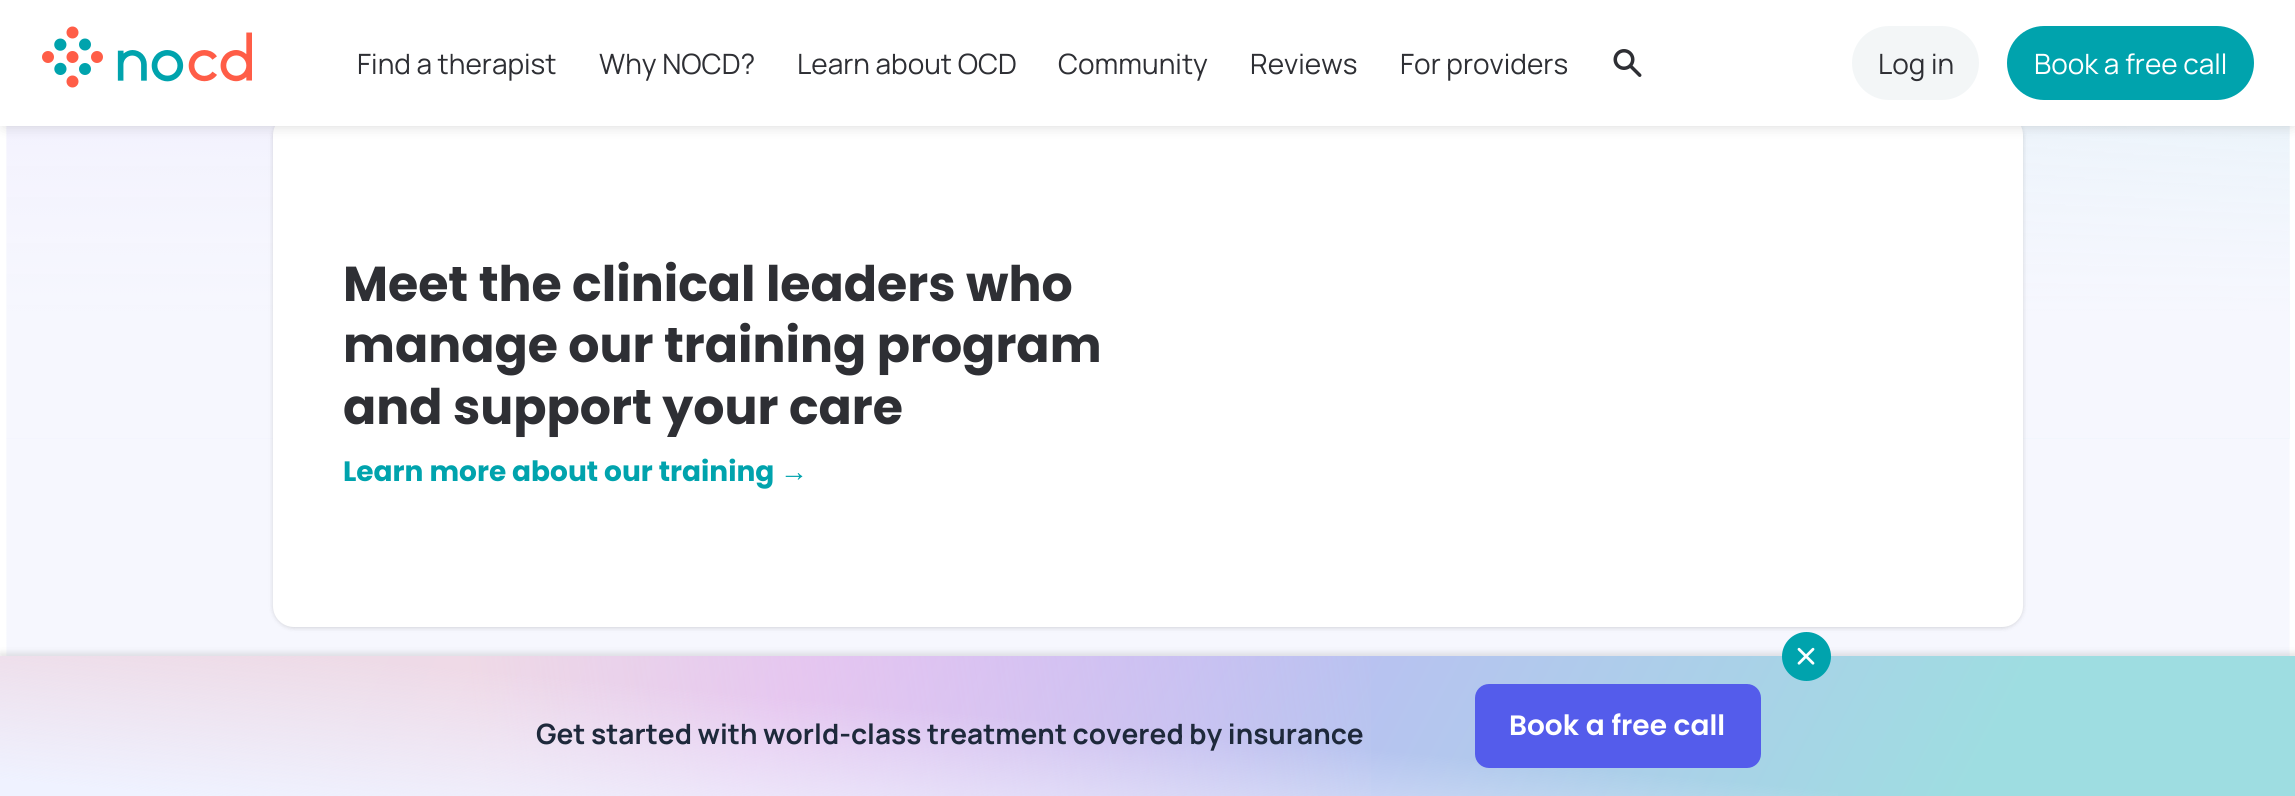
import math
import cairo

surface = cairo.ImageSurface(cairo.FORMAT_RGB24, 2295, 796)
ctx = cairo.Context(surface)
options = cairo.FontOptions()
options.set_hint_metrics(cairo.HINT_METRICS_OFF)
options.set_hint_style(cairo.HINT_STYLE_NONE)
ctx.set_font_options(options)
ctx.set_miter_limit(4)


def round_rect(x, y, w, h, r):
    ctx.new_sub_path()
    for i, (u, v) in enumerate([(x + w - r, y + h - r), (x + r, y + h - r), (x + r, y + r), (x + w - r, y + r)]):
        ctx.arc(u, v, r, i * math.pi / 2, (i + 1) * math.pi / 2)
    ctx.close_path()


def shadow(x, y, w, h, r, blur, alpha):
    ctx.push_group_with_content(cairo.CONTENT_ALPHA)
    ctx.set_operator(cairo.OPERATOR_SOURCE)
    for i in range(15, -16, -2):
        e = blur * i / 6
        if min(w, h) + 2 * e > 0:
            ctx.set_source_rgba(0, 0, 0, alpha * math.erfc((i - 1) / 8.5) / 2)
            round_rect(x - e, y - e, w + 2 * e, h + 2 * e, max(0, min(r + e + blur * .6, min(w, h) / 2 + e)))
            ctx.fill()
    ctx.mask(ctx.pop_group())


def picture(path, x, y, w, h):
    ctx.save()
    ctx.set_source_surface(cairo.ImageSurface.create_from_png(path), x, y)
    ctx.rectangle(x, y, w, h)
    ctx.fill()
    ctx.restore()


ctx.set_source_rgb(1, 1, 1)
ctx.paint()
picture("img3.png", 6, 126, 2284, 530)
ctx.set_source_rgb(0, 0, 0)
shadow(273, 116, 1750, 512, 21, 2, 0.06)
shadow(273, 116, 1750, 512, 21, 2.5, 0.1)
ctx.set_source_rgb(1, 1, 1)
round_rect(273, 114, 1750, 513, 21)
ctx.fill()
ctx.set_source_rgb(0, 0, 0)
shadow(4, 7, 2289, 119, 0, 7, 0.15)
ctx.set_source_rgb(1, 1, 1)
ctx.rectangle(0, 0, 2295, 126)
ctx.fill()
picture("img1.png", 42, 26, 210, 62)
ctx.select_font_face("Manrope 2 ExtraLight")
ctx.set_font_size(28)
ctx.set_source_rgb(0.18, 0.184, 0.204)
ctx.move_to(357, 74)
ctx.show_text("Find a therapist")
ctx.move_to(599, 74)
ctx.show_text("Why NOCD?")
ctx.move_to(797, 74)
ctx.show_text("Learn about OCD")
ctx.move_to(1058, 74)
ctx.show_text("Community")
ctx.move_to(1250, 74)
ctx.show_text("Reviews")
ctx.move_to(1400, 74)
ctx.show_text("For providers")
picture("img2.png", 1613, 49, 29, 28)
ctx.set_source_rgb(0.953, 0.961, 0.965)
round_rect(1853, 27, 125, 72, 36)
ctx.fill_preserve()
ctx.stroke()
ctx.set_source_rgb(0.18, 0.184, 0.204)
ctx.move_to(1878, 74)
ctx.show_text("Log in")
ctx.set_source_rgb(0, 0.639, 0.678)
round_rect(2008, 27, 245, 72, 36)
ctx.fill_preserve()
ctx.stroke()
ctx.set_source_rgb(1, 1, 1)
ctx.move_to(2034, 74)
ctx.show_text("Book a free call")
ctx.select_font_face("Poppins", cairo.FONT_SLANT_NORMAL, cairo.FONT_WEIGHT_BOLD)
ctx.set_font_size(49)
ctx.set_source_rgb(0.18, 0.184, 0.204)
ctx.move_to(343, 301)
ctx.show_text("Meet the clinical leaders who")
ctx.move_to(343, 362)
ctx.show_text("manage our training program")
ctx.move_to(343, 424)
ctx.show_text("and support your care")
ctx.set_font_size(28)
ctx.set_source_rgb(0, 0.639, 0.678)
ctx.move_to(343, 481)
ctx.show_text("Learn more about our training")
ctx.select_font_face("Liberation Sans", cairo.FONT_SLANT_NORMAL, cairo.FONT_WEIGHT_BOLD)
ctx.move_to(780, 481)
ctx.show_text("→")
ctx.set_source_rgb(0, 0, 0)
shadow(0, 653, 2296, 140, 0, 3.5, 0.12)
gradient = cairo.LinearGradient(224, 235, 2072, 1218)
gradient.add_color_stop_rgba(0.16, 0.733, 0.745, 0.969, 1)
gradient.add_color_stop_rgba(0.34, 0.808, 0.671, 0.996, 1)
gradient.add_color_stop_rgba(0.86, 0.62, 0.867, 0.882, 1)
ctx.set_source(gradient)
ctx.rectangle(0, 656, 2295, 140)
ctx.fill()
gradient = cairo.LinearGradient(2283, 567, 13, 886)
gradient.add_color_stop_rgba(0.39, 1, 0.894, 0.882, 0)
gradient.add_color_stop_rgba(0.79, 1, 0.894, 0.882, 0.75)
ctx.set_source(gradient)
ctx.rectangle(0, 656, 1371, 140)
ctx.fill()
gradient = cairo.LinearGradient(1163, 557, 1133, 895)
gradient.add_color_stop_rgba(0.51, 0.937, 0.949, 1, 0)
gradient.add_color_stop_rgba(0.96, 0.937, 0.949, 1, 1)
ctx.set_source(gradient)
ctx.rectangle(0, 656, 1838, 140)
ctx.fill()
ctx.set_source_rgb(0, 0.639, 0.678)
ctx.arc(1806.5, 656.5, 24.5, 0, 2 * math.pi)
ctx.fill()
picture("img4.png", 1797, 647, 18, 18)
ctx.select_font_face("Manrope ExtraLight")
ctx.set_source_rgb(0.118, 0.161, 0.231)
ctx.move_to(536, 744)
ctx.show_text("Get started with world-class treatment covered by insurance")
ctx.set_source_rgb(0.329, 0.361, 0.918)
round_rect(1475, 684, 286, 84, 14)
ctx.fill()
ctx.select_font_face("Poppins SemiBold")
ctx.set_source_rgb(1, 1, 1)
ctx.move_to(1509, 735)
ctx.show_text("Book a free call")
surface.write_to_png("page.png")
